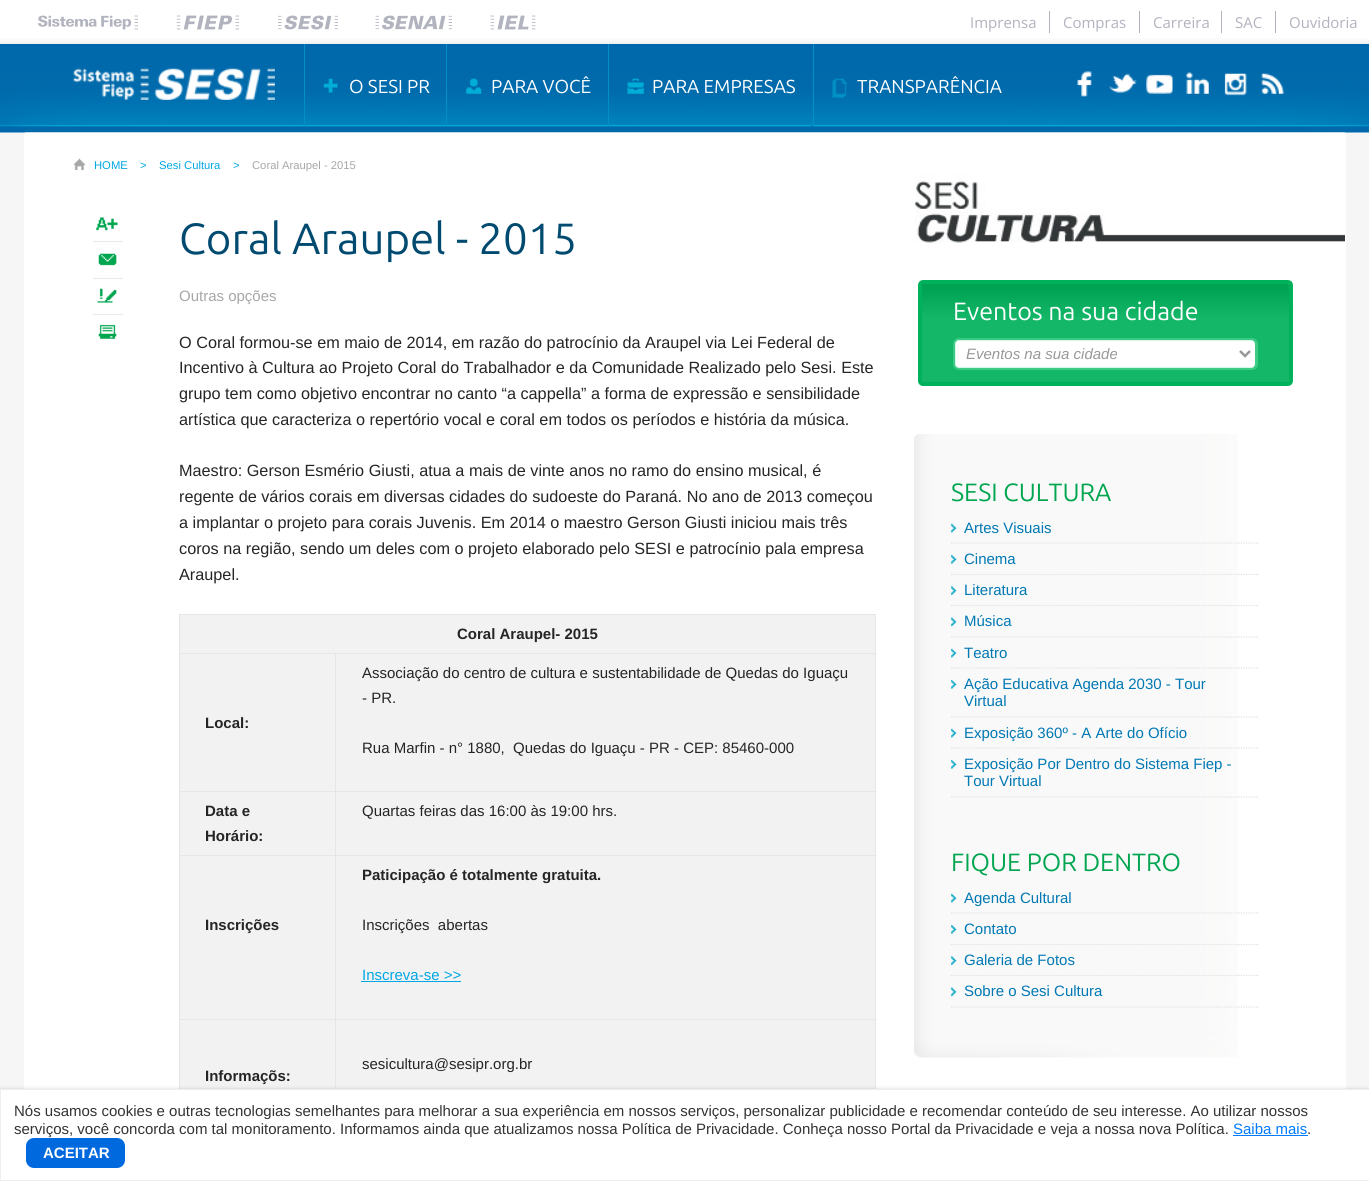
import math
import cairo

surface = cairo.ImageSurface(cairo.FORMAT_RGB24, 1369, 1181)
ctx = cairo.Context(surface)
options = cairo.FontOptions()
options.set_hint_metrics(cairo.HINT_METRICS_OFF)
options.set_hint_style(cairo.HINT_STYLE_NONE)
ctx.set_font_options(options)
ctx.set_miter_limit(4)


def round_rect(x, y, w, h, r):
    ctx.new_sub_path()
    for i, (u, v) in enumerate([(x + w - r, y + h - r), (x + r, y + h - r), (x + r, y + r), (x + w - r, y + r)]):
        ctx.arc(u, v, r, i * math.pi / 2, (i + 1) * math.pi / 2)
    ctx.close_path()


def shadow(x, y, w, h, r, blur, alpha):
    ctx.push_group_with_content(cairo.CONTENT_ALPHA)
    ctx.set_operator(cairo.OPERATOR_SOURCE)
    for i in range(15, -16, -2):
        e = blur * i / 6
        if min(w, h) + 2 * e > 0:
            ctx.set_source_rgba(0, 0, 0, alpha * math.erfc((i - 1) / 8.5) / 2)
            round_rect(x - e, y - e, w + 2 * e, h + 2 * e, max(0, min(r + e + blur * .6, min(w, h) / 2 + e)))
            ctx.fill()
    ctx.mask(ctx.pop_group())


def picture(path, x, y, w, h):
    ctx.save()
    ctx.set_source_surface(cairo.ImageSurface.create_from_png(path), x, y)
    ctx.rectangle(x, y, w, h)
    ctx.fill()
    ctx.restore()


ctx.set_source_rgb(0.961, 0.961, 0.961)
ctx.paint()
gradient = cairo.LinearGradient(685, 0, 685, 44)
gradient.add_color_stop_rgba(0, 1, 1, 1, 1)
gradient.add_color_stop_rgba(0.85, 1, 1, 1, 1)
gradient.add_color_stop_rgba(1, 0.941, 0.941, 0.941, 1)
ctx.set_source(gradient)
ctx.rectangle(0, 0, 1369, 44)
ctx.fill()
picture("img1.png", 38, 15, 100, 15)
picture("img2.png", 176, 15, 63, 15)
picture("img3.png", 278, 15, 60, 15)
picture("img4.png", 375, 15, 77, 15)
picture("img5.png", 490, 15, 46, 15)
ctx.set_source_rgb(0.694, 0.702, 0.745)
ctx.rectangle(1049, 11, 1, 22)
ctx.fill()
ctx.select_font_face("Open Sans")
ctx.set_font_size(15)
ctx.move_to(970, 28)
ctx.show_text("Imprensa")
ctx.rectangle(1139, 11, 1, 22)
ctx.fill()
ctx.move_to(1063, 28)
ctx.show_text("Compras")
ctx.rectangle(1221, 11, 1, 22)
ctx.fill()
ctx.move_to(1153, 28)
ctx.show_text("Carreira")
ctx.rectangle(1275, 11, 1, 22)
ctx.fill()
ctx.move_to(1235, 28)
ctx.show_text("SAC")
ctx.move_to(1289, 28)
ctx.show_text("Ouvidoria")
ctx.set_source_rgb(1, 1, 1)
ctx.rectangle(24, 132, 1322, 957)
ctx.fill()
picture("img6.png", 0, 44, 1369, 89)
picture("img7.png", 73, 68, 202, 32)
picture("img8.png", 323, 78, 15, 15)
ctx.set_source_rgb(0, 0.565, 0.773)
ctx.rectangle(304, 44, 1, 82)
ctx.fill()
ctx.select_font_face("Ubuntu")
ctx.set_font_size(18.75)
ctx.set_source_rgb(1, 1, 1)
ctx.move_to(349, 93)
ctx.show_text("O SESI PR")
picture("img9.png", 466, 78, 16, 16)
ctx.set_source_rgb(0, 0.565, 0.773)
ctx.rectangle(446, 44, 1, 82)
ctx.fill()
ctx.set_source_rgb(1, 1, 1)
ctx.move_to(491, 93)
ctx.show_text("PARA VOCÊ")
picture("img10.png", 810, 122, 3, 4)
picture("img11.png", 627, 78, 17, 16)
ctx.set_source_rgb(0, 0.565, 0.773)
ctx.rectangle(608, 44, 1, 82)
ctx.fill()
ctx.set_source_rgb(1, 1, 1)
ctx.move_to(652, 93)
ctx.show_text("PARA EMPRESAS")
picture("img12.png", 832, 78, 15, 20)
ctx.set_source_rgb(0, 0.565, 0.773)
ctx.rectangle(813, 44, 1, 82)
ctx.fill()
ctx.set_source_rgb(1, 1, 1)
ctx.move_to(857, 93)
ctx.show_text("TRANSPARÊNCIA")
picture("img13.png", 1077, 71, 15, 26)
picture("img14.png", 1109, 73, 28, 20)
picture("img15.png", 1146, 74, 27, 20)
picture("img16.png", 1186, 72, 23, 22)
picture("img17.png", 1224, 73, 23, 23)
picture("img18.png", 1261, 73, 23, 21)
picture("img19.png", 25, 132, 1320, 111)
picture("img20.png", 73, 158, 12, 12)
ctx.select_font_face("Liberation Sans")
ctx.set_font_size(11.25)
ctx.set_source_rgb(0, 0.655, 0.894)
ctx.move_to(94, 169)
ctx.show_text("HOME")
ctx.move_to(140, 169)
ctx.show_text(">")
ctx.move_to(159, 169)
ctx.show_text("Sesi Cultura")
ctx.move_to(233, 169)
ctx.show_text(">")
ctx.set_source_rgb(0.655, 0.655, 0.655)
ctx.move_to(252, 169)
ctx.show_text("Coral Araupel - 2015")
picture("img21.png", 96, 217, 22, 14)
ctx.set_source_rgb(0.914, 0.914, 0.914)
ctx.rectangle(93, 241, 30, 1)
ctx.fill()
picture("img22.png", 98, 253, 19, 13)
ctx.rectangle(93, 278, 30, 1)
ctx.fill()
picture("img23.png", 97, 288, 20, 15)
ctx.rectangle(93, 314, 30, 1)
ctx.fill()
picture("img24.png", 98, 324, 19, 15)
ctx.select_font_face("Ubuntu")
ctx.set_font_size(43.75)
ctx.set_source_rgb(0, 0.29, 0.439)
ctx.move_to(179, 254)
ctx.show_text("Coral Araupel - 2015")
ctx.select_font_face("Liberation Sans")
ctx.set_font_size(15)
ctx.set_source_rgb(0.655, 0.655, 0.655)
ctx.move_to(179, 301)
ctx.show_text("Outras opções")
ctx.set_font_size(16.25)
ctx.set_source_rgb(0.145, 0.145, 0.145)
ctx.move_to(179, 348)
ctx.show_text("O Coral formou-se em maio de 2014, em razão do patrocínio da Araupel via Lei Federal de")
ctx.move_to(179, 373)
ctx.show_text("Incentivo à Cultura ao Projeto Coral do Trabalhador e da Comunidade Realizado pelo Sesi. Este")
ctx.move_to(179, 399)
ctx.show_text("grupo tem como objetivo encontrar no canto “a cappella” a forma de expressão e sensibilidade")
ctx.move_to(179, 425)
ctx.show_text("artística que caracteriza o repertório vocal e coral em todos os períodos e história da música.")
ctx.move_to(179, 476)
ctx.show_text("Maestro: Gerson Esmério Giusti, atua a mais de vinte anos no ramo do ensino musical, é")
ctx.move_to(179, 502)
ctx.show_text("regente de vários corais em diversas cidades do sudoeste do Paraná. No ano de 2013 começou")
ctx.move_to(179, 528)
ctx.show_text("a implantar o projeto para corais Juvenis. Em 2014 o maestro Gerson Giusti iniciou mais três")
ctx.move_to(179, 554)
ctx.show_text("coros na região, sendo um deles com o projeto elaborado pelo SESI e patrocínio pala empresa")
ctx.move_to(179, 580)
ctx.show_text("Araupel.")
ctx.set_source_rgb(0.949, 0.949, 0.949)
ctx.rectangle(180, 615, 695, 474)
ctx.fill()
ctx.set_source_rgb(0.902, 0.902, 0.902)
ctx.rectangle(179, 614, 697, 1)
ctx.fill()
ctx.rectangle(335, 653, 541, 1)
ctx.fill()
ctx.rectangle(335, 791, 541, 1)
ctx.fill()
ctx.rectangle(335, 855, 541, 1)
ctx.fill()
ctx.rectangle(335, 1019, 541, 1)
ctx.fill()
ctx.rectangle(875, 1019, 1, 70)
ctx.fill()
ctx.rectangle(875, 855, 1, 165)
ctx.fill()
ctx.rectangle(875, 791, 1, 65)
ctx.fill()
ctx.rectangle(875, 653, 1, 140)
ctx.fill()
ctx.rectangle(875, 614, 1, 40)
ctx.fill()
ctx.rectangle(335, 1019, 1, 70)
ctx.fill()
ctx.rectangle(179, 1019, 157, 1)
ctx.fill()
ctx.rectangle(335, 855, 1, 165)
ctx.fill()
ctx.rectangle(179, 855, 157, 1)
ctx.fill()
ctx.rectangle(335, 791, 1, 65)
ctx.fill()
ctx.rectangle(179, 791, 157, 1)
ctx.fill()
ctx.rectangle(335, 653, 1, 140)
ctx.fill()
ctx.rectangle(179, 653, 157, 1)
ctx.fill()
ctx.rectangle(179, 1019, 1, 70)
ctx.fill()
ctx.rectangle(179, 855, 1, 165)
ctx.fill()
ctx.rectangle(179, 791, 1, 65)
ctx.fill()
ctx.rectangle(179, 653, 1, 140)
ctx.fill()
ctx.rectangle(179, 614, 1, 40)
ctx.fill()
ctx.select_font_face("Liberation Sans", cairo.FONT_SLANT_NORMAL, cairo.FONT_WEIGHT_BOLD)
ctx.set_font_size(15)
ctx.set_source_rgb(0.145, 0.145, 0.145)
ctx.move_to(457, 639)
ctx.show_text("Coral Araupel- 2015")
ctx.move_to(205, 728)
ctx.show_text("Local:")
ctx.select_font_face("Liberation Sans")
ctx.move_to(362, 678)
ctx.show_text("Associação do centro de cultura e sustentabilidade de Quedas do Iguaçu")
ctx.move_to(362, 703)
ctx.show_text("- PR.")
ctx.move_to(362, 753)
ctx.show_text("Rua Marfin - n° 1880,  Quedas do Iguaçu - PR - CEP: 85460-000")
ctx.select_font_face("Liberation Sans", cairo.FONT_SLANT_NORMAL, cairo.FONT_WEIGHT_BOLD)
ctx.move_to(205, 816)
ctx.show_text("Data e")
ctx.move_to(205, 841)
ctx.show_text("Horário:")
ctx.select_font_face("Liberation Sans")
ctx.move_to(362, 816)
ctx.show_text("Quartas feiras das 16:00 às 19:00 hrs.")
ctx.select_font_face("Liberation Sans", cairo.FONT_SLANT_NORMAL, cairo.FONT_WEIGHT_BOLD)
ctx.move_to(205, 930)
ctx.show_text("Inscrições")
ctx.move_to(362, 880)
ctx.show_text("Paticipação é totalmente gratuita.")
ctx.select_font_face("Liberation Sans")
ctx.move_to(362, 930)
ctx.show_text("Inscrições  abertas")
ctx.set_source_rgb(0, 0.655, 0.894)
ctx.move_to(362, 980)
ctx.show_text("Inscreva-se >>")
ctx.rectangle(361, 981, 100, 1)
ctx.fill()
ctx.set_source_rgb(0.145, 0.145, 0.145)
ctx.move_to(362, 1069)
ctx.show_text("sesicultura@sesipr.org.br")
ctx.select_font_face("Liberation Sans", cairo.FONT_SLANT_NORMAL, cairo.FONT_WEIGHT_BOLD)
ctx.move_to(205, 1081)
ctx.show_text("Informaçõs:")
ctx.set_source_rgb(0, 0.694, 0.357)
round_rect(921, 284, 368, 99, 1)
ctx.fill()
gradient = cairo.LinearGradient(1105, 383, 1105, 284)
gradient.add_color_stop_rgba(0.06, 1, 1, 1, 0.08)
gradient.add_color_stop_rgba(0.65, 1, 1, 1, 0.08)
gradient.add_color_stop_rgba(0.95, 0, 0, 0, 0.08)
ctx.set_source(gradient)
ctx.rectangle(922, 284, 367, 98)
ctx.fill()
round_rect(920, 282, 371, 102, 3)
ctx.set_source_rgb(0, 0.694, 0.357)
ctx.set_line_width(4)
ctx.stroke()
ctx.select_font_face("Ubuntu")
ctx.set_font_size(25)
ctx.set_source_rgb(1, 1, 1)
ctx.move_to(953, 320)
ctx.show_text("Eventos na sua cidade")
round_rect(955, 340, 300, 28, 4)
ctx.fill()
round_rect(954.5, 339.5, 302, 29, 4.5)
ctx.set_source_rgba(0.514, 0.929, 0.725, 0.36)
ctx.set_line_width(3)
ctx.stroke()
ctx.new_path()
ctx.move_to(1240, 351)
ctx.line_to(1245, 356)
ctx.line_to(1250, 351)
ctx.set_source_rgb(0.596, 0.596, 0.596)
ctx.set_line_width(2.5)
ctx.stroke()
ctx.select_font_face("Liberation Sans", cairo.FONT_SLANT_ITALIC)
ctx.set_font_size(15)
ctx.move_to(966, 359)
ctx.show_text("Eventos na sua cidade")
picture("img25.png", 914, 434, 324, 624)
ctx.select_font_face("Ubuntu")
ctx.set_font_size(25)
ctx.set_source_rgb(0, 0.647, 0.31)
ctx.move_to(951, 501)
ctx.show_text("SESI CULTURA")
picture("img26.png", 951, 523, 6, 10)
ctx.new_path()
ctx.move_to(951, 543)
ctx.line_to(1259, 543)
ctx.set_source_rgb(0.882, 0.882, 0.882)
ctx.set_line_width(1.2)
ctx.set_dash([1.25, 1.25])
ctx.stroke()
ctx.select_font_face("Liberation Sans")
ctx.set_font_size(15)
ctx.set_source_rgb(0, 0.471, 0.706)
ctx.move_to(964, 533)
ctx.show_text("Artes Visuais")
picture("img27.png", 951, 555, 6, 9)
ctx.new_path()
ctx.move_to(951, 574.5)
ctx.line_to(1259, 574.5)
ctx.set_source_rgb(0.882, 0.882, 0.882)
ctx.stroke()
ctx.set_source_rgb(0, 0.471, 0.706)
ctx.move_to(964, 564)
ctx.show_text("Cinema")
picture("img28.png", 951, 586, 6, 9)
ctx.new_path()
ctx.move_to(951, 605.5)
ctx.line_to(1259, 605.5)
ctx.set_source_rgb(0.882, 0.882, 0.882)
ctx.stroke()
ctx.set_source_rgb(0, 0.471, 0.706)
ctx.move_to(964, 595)
ctx.show_text("Literatura")
picture("img29.png", 951, 617, 6, 10)
ctx.new_path()
ctx.move_to(951, 637)
ctx.line_to(1259, 637)
ctx.set_source_rgb(0.882, 0.882, 0.882)
ctx.stroke()
ctx.set_source_rgb(0, 0.471, 0.706)
ctx.move_to(964, 626)
ctx.show_text("Música")
picture("img26.png", 951, 648, 6, 10)
ctx.new_path()
ctx.move_to(951, 668)
ctx.line_to(1259, 668)
ctx.set_source_rgb(0.882, 0.882, 0.882)
ctx.stroke()
ctx.set_source_rgb(0, 0.471, 0.706)
ctx.move_to(964, 658)
ctx.show_text("Teatro")
picture("img27.png", 951, 680, 6, 9)
ctx.new_path()
ctx.move_to(951, 717)
ctx.line_to(1259, 717)
ctx.set_source_rgb(0.882, 0.882, 0.882)
ctx.stroke()
ctx.set_source_rgb(0, 0.471, 0.706)
ctx.move_to(964, 689)
ctx.show_text("Ação Educativa Agenda 2030 - Tour")
ctx.move_to(964, 706)
ctx.show_text("Virtual")
picture("img26.png", 951, 728, 6, 10)
ctx.new_path()
ctx.move_to(951, 748)
ctx.line_to(1259, 748)
ctx.set_source_rgb(0.882, 0.882, 0.882)
ctx.stroke()
ctx.set_source_rgb(0, 0.471, 0.706)
ctx.move_to(964, 738)
ctx.show_text("Exposição 360º - A Arte do Ofício")
picture("img27.png", 951, 760, 6, 9)
ctx.new_path()
ctx.move_to(951, 797)
ctx.line_to(1259, 797)
ctx.set_source_rgb(0.882, 0.882, 0.882)
ctx.stroke()
ctx.set_source_rgb(0, 0.471, 0.706)
ctx.move_to(964, 769)
ctx.show_text("Exposição Por Dentro do Sistema Fiep -")
ctx.move_to(964, 786)
ctx.show_text("Tour Virtual")
ctx.select_font_face("Ubuntu")
ctx.set_font_size(25)
ctx.set_source_rgb(0, 0.647, 0.31)
ctx.move_to(951, 871)
ctx.show_text("FIQUE POR DENTRO")
picture("img26.png", 951, 893, 6, 10)
ctx.new_path()
ctx.move_to(951, 913)
ctx.line_to(1259, 913)
ctx.set_source_rgb(0.882, 0.882, 0.882)
ctx.stroke()
ctx.select_font_face("Liberation Sans")
ctx.set_font_size(15)
ctx.set_source_rgb(0, 0.471, 0.706)
ctx.move_to(964, 903)
ctx.show_text("Agenda Cultural")
picture("img27.png", 951, 925, 6, 9)
ctx.new_path()
ctx.move_to(951, 944.5)
ctx.line_to(1259, 944.5)
ctx.set_source_rgb(0.882, 0.882, 0.882)
ctx.stroke()
ctx.set_source_rgb(0, 0.471, 0.706)
ctx.move_to(964, 934)
ctx.show_text("Contato")
picture("img30.png", 951, 956, 6, 9)
ctx.new_path()
ctx.move_to(951, 975.5)
ctx.line_to(1259, 975.5)
ctx.set_source_rgb(0.882, 0.882, 0.882)
ctx.stroke()
ctx.set_source_rgb(0, 0.471, 0.706)
ctx.move_to(964, 965)
ctx.show_text("Galeria de Fotos")
picture("img29.png", 951, 987, 6, 10)
ctx.new_path()
ctx.move_to(951, 1007)
ctx.line_to(1259, 1007)
ctx.set_source_rgb(0.882, 0.882, 0.882)
ctx.stroke()
ctx.set_source_rgb(0, 0.471, 0.706)
ctx.move_to(964, 996)
ctx.show_text("Sobre o Sesi Cultura")
ctx.set_source_rgb(0, 0, 0)
shadow(0, 1091, 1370, 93, 0, 2.5, 0.4)
ctx.set_source_rgb(1, 1, 1)
ctx.rectangle(0.5, 1089.5, 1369, 91)
ctx.fill_preserve()
ctx.set_source_rgb(0.933, 0.933, 0.933)
ctx.set_line_width(1)
ctx.set_dash([])
ctx.stroke()
ctx.set_source_rgb(0.2, 0.2, 0.2)
ctx.move_to(14, 1116)
ctx.show_text("Nós usamos cookies e outras tecnologias semelhantes para melhorar a sua experiência em nossos serviços, personalizar publicidade e recomendar conteúdo de seu interesse. Ao utilizar nossos")
ctx.move_to(14, 1134)
ctx.show_text("serviços, você concorda com tal monitoramento. Informamos ainda que atualizamos nossa Política de Privacidade. Conheça nosso Portal da Privacidade e veja a nossa nova Política.")
ctx.set_source_rgb(0, 0.482, 1)
ctx.move_to(1233, 1134)
ctx.show_text("Saiba mais")
ctx.rectangle(1233, 1135, 75, 1)
ctx.fill()
ctx.set_source_rgb(0.2, 0.2, 0.2)
ctx.move_to(1307, 1134)
ctx.show_text(".")
ctx.set_source_rgb(0, 0.412, 0.871)
round_rect(26, 1138, 99, 30, 8)
ctx.fill()
ctx.select_font_face("Liberation Sans", cairo.FONT_SLANT_NORMAL, cairo.FONT_WEIGHT_BOLD)
ctx.set_source_rgb(1, 1, 1)
ctx.move_to(43, 1158)
ctx.show_text("ACEITAR")
surface.write_to_png("page.png")
